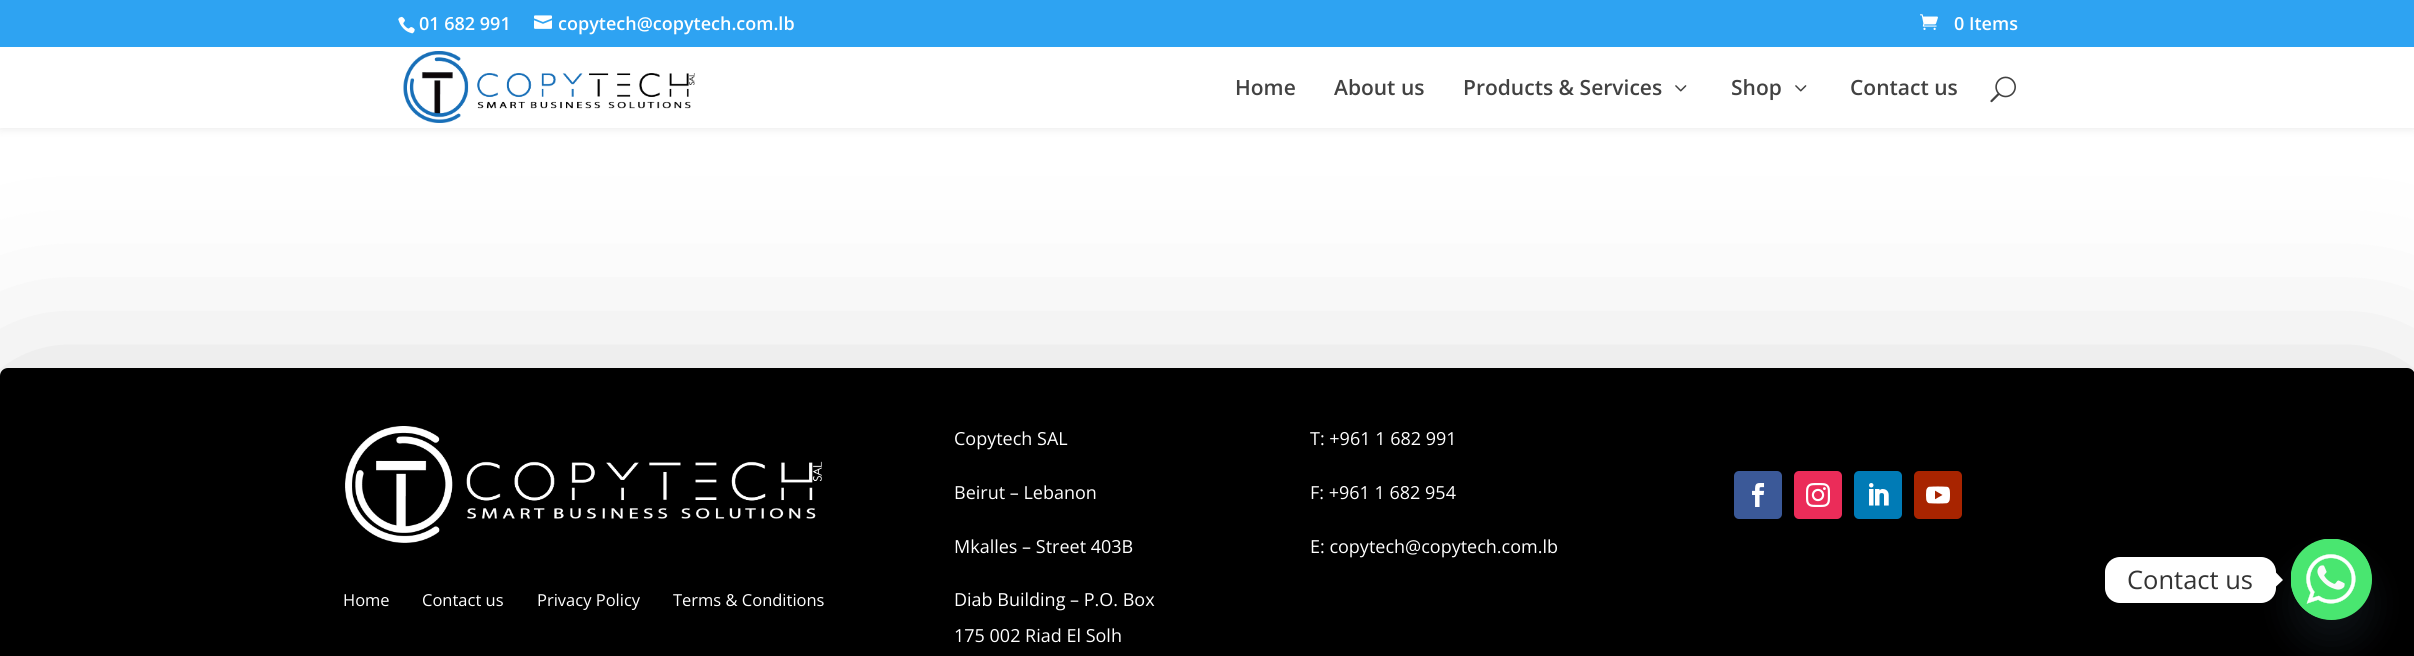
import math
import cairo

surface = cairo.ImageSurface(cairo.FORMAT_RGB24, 2414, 656)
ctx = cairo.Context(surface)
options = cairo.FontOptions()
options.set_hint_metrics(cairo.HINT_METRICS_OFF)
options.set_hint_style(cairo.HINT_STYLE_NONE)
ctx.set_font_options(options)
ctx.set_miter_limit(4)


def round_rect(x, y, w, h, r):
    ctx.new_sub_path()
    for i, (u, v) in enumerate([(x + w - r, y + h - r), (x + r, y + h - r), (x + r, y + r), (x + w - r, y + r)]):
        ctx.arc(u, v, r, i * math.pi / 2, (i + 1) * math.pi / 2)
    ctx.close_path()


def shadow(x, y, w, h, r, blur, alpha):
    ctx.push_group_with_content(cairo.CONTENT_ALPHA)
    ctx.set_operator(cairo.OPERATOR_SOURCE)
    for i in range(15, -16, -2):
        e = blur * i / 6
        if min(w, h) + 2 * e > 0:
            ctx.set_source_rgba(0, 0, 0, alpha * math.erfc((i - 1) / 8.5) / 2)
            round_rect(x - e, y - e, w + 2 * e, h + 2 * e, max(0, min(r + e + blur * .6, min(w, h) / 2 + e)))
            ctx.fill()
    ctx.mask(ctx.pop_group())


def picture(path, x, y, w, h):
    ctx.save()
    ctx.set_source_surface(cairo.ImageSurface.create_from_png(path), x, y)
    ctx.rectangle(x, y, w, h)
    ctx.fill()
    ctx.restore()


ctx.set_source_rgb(1, 1, 1)
ctx.paint()
ctx.set_source_rgb(0, 0, 0)
shadow(0, 47, 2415, 81, 0, 5, 0.1)
ctx.set_source_rgb(0.18, 0.639, 0.949)
ctx.rectangle(0, 0, 2414, 47)
ctx.fill()
picture("img1.png", 398, 16, 17, 18)
ctx.select_font_face("Open Sans SemiBold")
ctx.set_font_size(18)
ctx.set_source_rgb(1, 1, 1)
ctx.move_to(419, 30)
ctx.show_text("01 682 991")
picture("img2.png", 534, 15, 18, 14)
ctx.move_to(558, 30)
ctx.show_text("copytech@copytech.com.lb")
picture("img3.png", 1920, 14, 18, 16)
ctx.move_to(1954, 30)
ctx.show_text("0 Items")
ctx.set_source_rgb(0, 0, 0)
shadow(9, 395, 2397, 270, 0, 101, 0.18)
ctx.set_source_rgb(1, 1, 1)
ctx.rectangle(0, 47, 2414, 81)
ctx.fill()
picture("img4.png", 403, 51, 292, 72)
ctx.set_font_size(21)
ctx.set_source_rgb(0.259, 0.259, 0.259)
ctx.move_to(1235, 95)
ctx.show_text("Home")
ctx.move_to(1334, 95)
ctx.show_text("About us")
ctx.move_to(1463, 95)
ctx.show_text("Products & Services")
picture("img5.png", 1675, 85, 12, 7)
ctx.move_to(1731, 95)
ctx.show_text("Shop")
picture("img5.png", 1795, 85, 12, 7)
ctx.move_to(1850, 95)
ctx.show_text("Contact us")
picture("img6.png", 1990, 76, 26, 27)
ctx.set_source_rgb(0, 0, 0)
ctx.new_path()
ctx.move_to(8, 368)
ctx.line_to(2407, 368)
ctx.curve_to(2411.5, 368, 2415, 371.5, 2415, 376)
ctx.line_to(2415, 656)
ctx.line_to(0, 656)
ctx.line_to(0, 376)
ctx.curve_to(0, 371.5, 3.5, 368, 8, 368)
ctx.close_path()
ctx.fill()
ctx.select_font_face("Open Sans")
ctx.set_font_size(18)
ctx.set_source_rgb(1, 1, 1)
ctx.move_to(954, 445)
ctx.show_text("Copytech SAL")
ctx.move_to(954, 499)
ctx.show_text("Beirut – Lebanon")
ctx.move_to(954, 553)
ctx.show_text("Mkalles – Street 403B")
ctx.move_to(954, 606)
ctx.show_text("Diab Building – P.O. Box")
ctx.move_to(954, 642)
ctx.show_text("175 002 Riad El Solh")
ctx.move_to(1310, 445)
ctx.show_text("T: +961 1 682 991")
ctx.move_to(1310, 499)
ctx.show_text("F: +961 1 682 954")
ctx.move_to(1310, 553)
ctx.show_text("E: copytech@copytech.com.lb")
ctx.set_source_rgb(0.231, 0.349, 0.596)
round_rect(1734, 471, 48, 48, 5)
ctx.fill()
picture("img7.png", 1752, 483, 13, 24)
ctx.set_source_rgb(0.918, 0.173, 0.349)
round_rect(1794, 471, 48, 48, 5)
ctx.fill()
picture("img8.png", 1806, 483, 24, 24)
ctx.set_source_rgb(0, 0.482, 0.714)
round_rect(1854, 471, 48, 48, 5)
ctx.fill()
picture("img9.png", 1869, 483, 20, 23)
ctx.set_source_rgb(0.659, 0.141, 0)
round_rect(1914, 471, 48, 48, 5)
ctx.fill()
picture("img10.png", 1926, 486, 24, 18)
picture("img11.png", 345, 426, 477, 117)
ctx.set_font_size(16.5)
ctx.set_source_rgb(1, 1, 1)
ctx.move_to(343, 606)
ctx.show_text("Home")
ctx.move_to(422, 606)
ctx.show_text("Contact us")
ctx.move_to(537, 606)
ctx.show_text("Privacy Policy")
ctx.move_to(673, 606)
ctx.show_text("Terms & Conditions")
ctx.set_source_rgb(0.286, 0.408, 0.494)
shadow(2291, 563, 81, 81, 40.5, 18, 0.16)
ctx.set_source_rgb(1, 1, 1)
round_rect(2105, 557, 171, 46, 15)
ctx.fill()
ctx.set_font_size(25.5)
ctx.set_source_rgb(0.2, 0.2, 0.2)
ctx.move_to(2127, 589)
ctx.show_text("Contact us")
ctx.set_source_rgb(1, 1, 1)
ctx.new_path()
ctx.move_to(2275.5, 587)
ctx.line_to(2275.5, 572)
ctx.line_to(2283, 580)
ctx.close_path()
ctx.fill()
ctx.set_source_rgb(0.286, 0.902, 0.439)
ctx.arc(2331.5, 579.5, 40.5, 0, 2 * math.pi)
ctx.fill()
picture("img12.png", 2291, 539, 81, 81)
surface.write_to_png("page.png")
